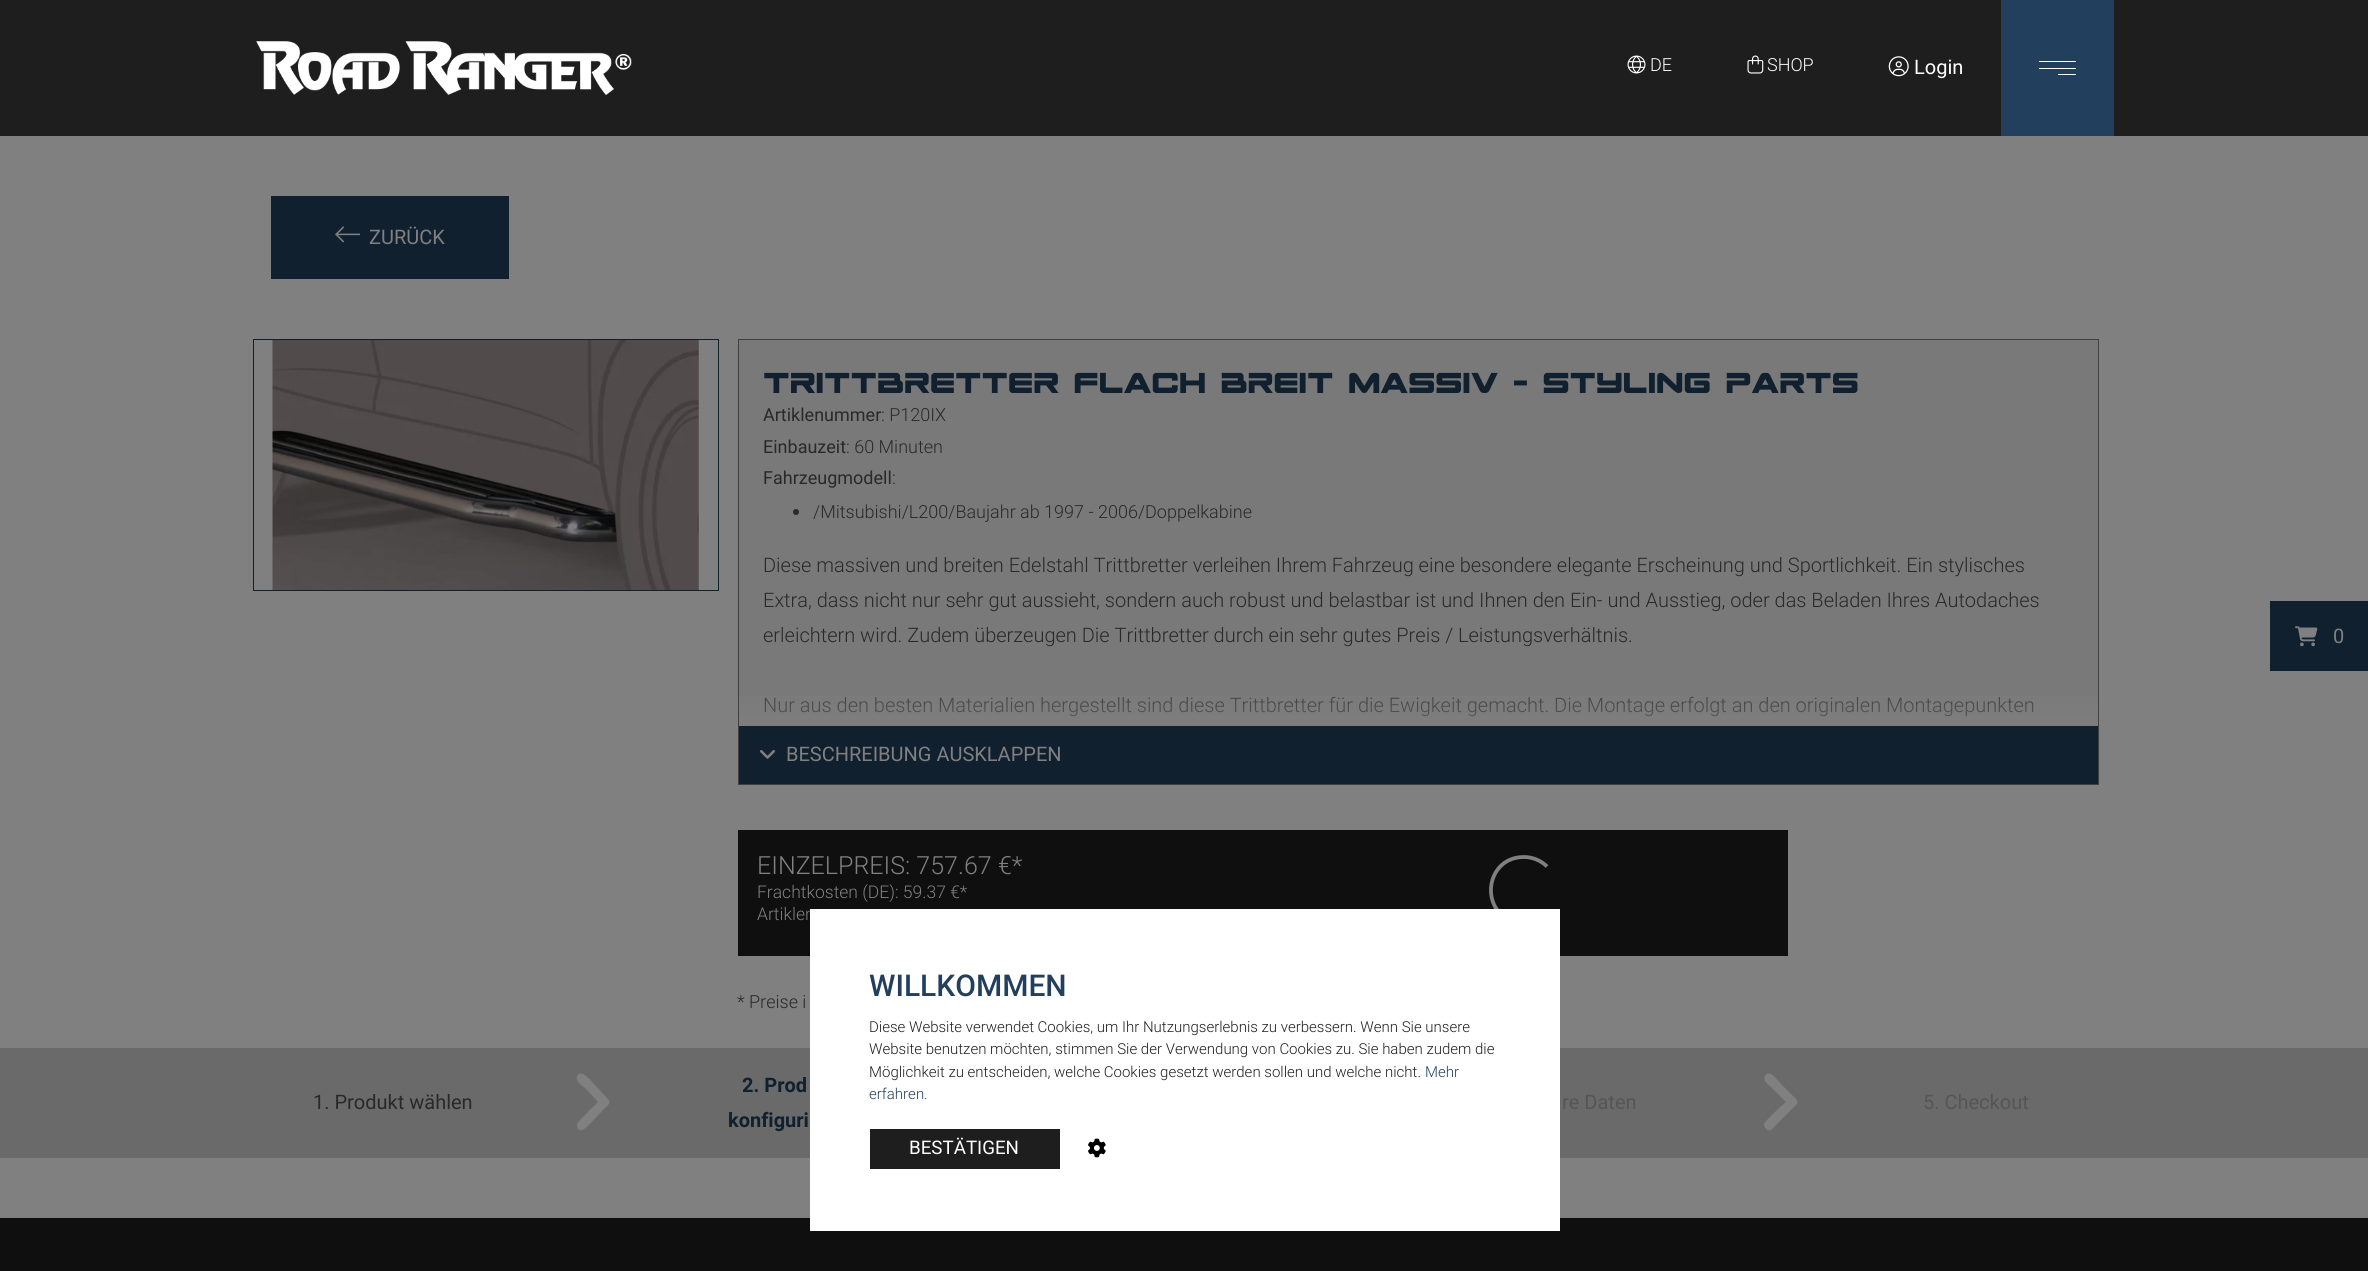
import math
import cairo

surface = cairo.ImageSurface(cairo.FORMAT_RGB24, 2368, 1271)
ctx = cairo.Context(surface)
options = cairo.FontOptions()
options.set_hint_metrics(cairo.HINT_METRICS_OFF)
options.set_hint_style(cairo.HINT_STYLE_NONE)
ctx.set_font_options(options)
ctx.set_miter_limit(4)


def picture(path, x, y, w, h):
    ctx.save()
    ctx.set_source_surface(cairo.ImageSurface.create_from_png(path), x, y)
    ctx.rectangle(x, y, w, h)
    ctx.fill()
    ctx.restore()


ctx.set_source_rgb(0.502, 0.502, 0.502)
ctx.paint()
ctx.set_source_rgb(0.118, 0.118, 0.118)
ctx.rectangle(0, 0, 2368, 136)
ctx.fill()
picture("img1.png", 256, 41, 376, 54)
picture("img2.png", 1627, 55, 19, 19)
ctx.select_font_face("Roboto Light")
ctx.set_font_size(18)
ctx.set_source_rgb(1, 1, 1)
ctx.move_to(1650, 71)
ctx.show_text("DE")
picture("img3.png", 1747, 55, 17, 19)
ctx.move_to(1767, 71)
ctx.show_text("SHOP")
picture("img4.png", 1888, 56, 21, 21)
ctx.select_font_face("Roboto")
ctx.set_font_size(20)
ctx.move_to(1914, 74)
ctx.show_text("Login")
ctx.set_source_rgb(0.133, 0.247, 0.365)
ctx.rectangle(2001, 0, 113, 136)
ctx.fill()
ctx.set_source_rgb(1, 1, 1)
ctx.rectangle(2039, 61, 37, 1)
ctx.fill()
ctx.rectangle(2039, 68, 37, 1)
ctx.fill()
ctx.rectangle(2058, 74, 18, 1)
ctx.fill()
ctx.set_source_rgb(0.059, 0.059, 0.059)
ctx.rectangle(738, 830, 1050, 126)
ctx.fill()
ctx.select_font_face("Roboto Light")
ctx.set_font_size(17.5)
ctx.set_source_rgb(0.502, 0.502, 0.502)
ctx.move_to(757, 920)
ctx.show_text("Artiklen")
ctx.new_path()
ctx.move_to(1367, 944.5)
ctx.curve_to(1361, 951, 1352.5, 954.5, 1344, 954.5)
ctx.curve_to(1304, 954.5, 1298.5, 896.5, 1337.5, 889)
ctx.curve_to(1348, 886.5, 1359.5, 890, 1367, 898)
ctx.set_source_rgb(0.059, 0.059, 0.059)
ctx.set_line_width(3.8)
ctx.stroke()
ctx.new_path()
ctx.move_to(1547, 913.5)
ctx.curve_to(1539.5, 921, 1528, 924.5, 1517.5, 922.5)
ctx.curve_to(1478.5, 914.5, 1484, 857, 1524, 857)
ctx.curve_to(1532.5, 857, 1541, 860.5, 1547, 866.5)
ctx.set_source_rgb(0.502, 0.502, 0.502)
ctx.stroke()
ctx.set_source_rgb(0.416, 0.416, 0.416)
ctx.rectangle(0, 1048, 2368, 110)
ctx.fill()
ctx.set_source_rgb(0.059, 0.059, 0.059)
ctx.rectangle(0, 1218, 2368, 53)
ctx.fill()
ctx.set_source_rgb(1, 1, 1)
ctx.rectangle(810, 909, 750, 322)
ctx.fill()
ctx.select_font_face("Roboto Medium")
ctx.set_font_size(30)
ctx.set_source_rgb(0.133, 0.247, 0.365)
ctx.move_to(869, 996)
ctx.show_text("WILLKOMMEN")
ctx.select_font_face("Roboto Light")
ctx.set_font_size(15)
ctx.set_source_rgb(0.118, 0.118, 0.118)
ctx.move_to(869, 1032)
ctx.show_text("Diese Website verwendet Cookies, um Ihr Nutzungserlebnis zu verbessern. Wenn Sie unsere")
ctx.move_to(869, 1054)
ctx.show_text("Website benutzen möchten, stimmen Sie der Verwendung von Cookies zu. Sie haben zudem die")
ctx.move_to(869, 1077)
ctx.show_text("Möglichkeit zu entscheiden, welche Cookies gesetzt werden sollen und welche nicht.")
ctx.set_source_rgb(0.133, 0.247, 0.365)
ctx.move_to(1425, 1077)
ctx.show_text("Mehr")
ctx.move_to(869, 1099)
ctx.show_text("erfahren.")
ctx.set_source_rgb(0.118, 0.118, 0.118)
ctx.rectangle(870, 1129, 190, 40)
ctx.fill()
ctx.select_font_face("Roboto")
ctx.set_font_size(18.75)
ctx.set_source_rgb(1, 1, 1)
ctx.move_to(909, 1154)
ctx.show_text("BESTÄTIGEN")
picture("img5.png", 1088, 1138, 18, 20)
ctx.set_source_rgb(0.067, 0.125, 0.184)
ctx.rectangle(271, 196, 238, 83)
ctx.fill()
picture("img6.png", 335, 226, 25, 17)
ctx.set_font_size(20)
ctx.set_source_rgb(0.502, 0.502, 0.502)
ctx.move_to(369, 244)
ctx.show_text("ZURÜCK")
ctx.rectangle(253.5, 339.5, 465, 251)
ctx.set_source_rgb(0.067, 0.125, 0.184)
ctx.set_line_width(1)
ctx.stroke()
picture("img7.png", 272, 340, 427, 250)
ctx.set_source_rgb(0.475, 0.475, 0.475)
ctx.rectangle(739, 340, 1359, 386)
ctx.fill()
ctx.rectangle(738.5, 339.5, 1360, 445)
ctx.set_source_rgb(0.251, 0.251, 0.251)
ctx.stroke()
ctx.select_font_face("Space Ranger")
ctx.set_font_size(40)
ctx.set_source_rgb(0.067, 0.125, 0.184)
ctx.move_to(763, 393)
ctx.show_text("Trittbretter flach breit massiv - styling parts")
ctx.select_font_face("Roboto")
ctx.set_font_size(18)
ctx.set_source_rgb(0.161, 0.161, 0.161)
ctx.move_to(763, 421)
ctx.show_text("Artiklenummer")
ctx.select_font_face("Roboto Light")
ctx.move_to(881, 421)
ctx.show_text(": P120IX")
ctx.select_font_face("Roboto")
ctx.move_to(763, 453)
ctx.show_text("Einbauzeit")
ctx.select_font_face("Roboto Light")
ctx.move_to(846, 453)
ctx.show_text(": 60 Minuten")
ctx.select_font_face("Roboto")
ctx.move_to(763, 484)
ctx.show_text("Fahrzeugmodell")
ctx.select_font_face("Roboto Light")
ctx.move_to(892, 484)
ctx.show_text(":")
ctx.new_path()
ctx.arc(796, 512, 3, 0, 2 * math.pi)
ctx.fill()
ctx.move_to(813, 518)
ctx.show_text("/Mitsubishi/L200/Baujahr ab 1997 - 2006/Doppelkabine")
ctx.set_font_size(20)
ctx.move_to(763, 572)
ctx.show_text("Diese massiven und breiten Edelstahl Trittbretter verleihen Ihrem Fahrzeug eine besondere elegante Erscheinung und Sportlichkeit. Ein stylisches")
ctx.move_to(763, 607)
ctx.show_text("Extra, dass nicht nur sehr gut aussieht, sondern auch robust und belastbar ist und Ihnen den Ein- und Ausstieg, oder das Beladen Ihres Autodaches")
ctx.move_to(763, 642)
ctx.show_text("erleichtern wird. Zudem überzeugen Die Trittbretter durch ein sehr gutes Preis / Leistungsverhältnis.")
ctx.move_to(763, 712)
ctx.show_text("Nur aus den besten Materialien hergestellt sind diese Trittbretter für die Ewigkeit gemacht. Die Montage erfolgt an den originalen Montagepunkten")
gradient = cairo.LinearGradient(1418, 784, 1418, 659)
gradient.add_color_stop_rgba(0.06, 0.502, 0.502, 0.502, 1)
gradient.add_color_stop_rgba(1, 0.502, 0.502, 0.502, 0)
ctx.set_source(gradient)
ctx.rectangle(739, 696, 1359, 30)
ctx.fill()
ctx.set_source_rgb(0.067, 0.125, 0.184)
ctx.rectangle(739, 726, 1359, 58)
ctx.fill()
picture("img8.png", 760, 750, 15, 9)
ctx.select_font_face("Roboto")
ctx.set_source_rgb(0.502, 0.502, 0.502)
ctx.move_to(786, 761)
ctx.show_text("BESCHREIBUNG AUSKLAPPEN")
ctx.select_font_face("Roboto Light")
ctx.set_font_size(25)
ctx.move_to(757, 874)
ctx.show_text("EINZELPREIS: 757.67")
ctx.move_to(998, 874)
ctx.show_text("€*")
ctx.set_font_size(17.5)
ctx.move_to(757, 898)
ctx.show_text("Frachtkosten (DE): 59.37 €*")
ctx.set_font_size(18)
ctx.set_source_rgb(0.161, 0.161, 0.161)
ctx.move_to(737, 1008)
ctx.show_text("* Preise i")
ctx.select_font_face("Roboto")
ctx.set_font_size(20)
ctx.move_to(313, 1109)
ctx.show_text("1. Produkt wählen")
ctx.set_source_rgb(0.502, 0.502, 0.502)
ctx.new_path()
ctx.move_to(608, 1099)
ctx.curve_to(612, 1103, 607, 1106, 604, 1109)
ctx.line_to(589, 1125)
ctx.curve_to(586, 1127, 582, 1133, 578, 1129)
ctx.curve_to(577, 1128, 577, 1126, 577, 1124)
ctx.curve_to(578, 1121, 595, 1105, 598, 1102)
ctx.line_to(585, 1088)
ctx.curve_to(582, 1086, 575, 1081, 577, 1076)
ctx.curve_to(581, 1068, 591, 1081, 593, 1083)
ctx.close_path()
ctx.fill()
ctx.select_font_face("Roboto", cairo.FONT_SLANT_NORMAL, cairo.FONT_WEIGHT_BOLD)
ctx.set_source_rgb(0.067, 0.125, 0.184)
ctx.move_to(742, 1092)
ctx.show_text("2. Prod")
ctx.move_to(728, 1127)
ctx.show_text("konfiguri")
ctx.select_font_face("Roboto")
ctx.set_source_rgb(0.333, 0.333, 0.333)
ctx.move_to(1562, 1109)
ctx.show_text("re Daten")
ctx.set_source_rgb(0.502, 0.502, 0.502)
ctx.new_path()
ctx.move_to(1796, 1099)
ctx.curve_to(1800, 1103, 1795, 1106, 1792, 1109)
ctx.line_to(1776, 1125)
ctx.curve_to(1774, 1127, 1770, 1133, 1766, 1129)
ctx.curve_to(1765, 1128, 1764, 1126, 1764, 1124)
ctx.curve_to(1765, 1121, 1782, 1105, 1786, 1102)
ctx.line_to(1772, 1088)
ctx.curve_to(1770, 1086, 1762, 1081, 1765, 1076)
ctx.curve_to(1769, 1068, 1778, 1081, 1780, 1083)
ctx.close_path()
ctx.fill()
ctx.set_source_rgb(0.333, 0.333, 0.333)
ctx.move_to(1923, 1109)
ctx.show_text("5. Checkout")
ctx.set_source_rgb(0.067, 0.125, 0.184)
ctx.rectangle(2270, 601, 98, 70)
ctx.fill()
picture("img9.png", 2295, 626, 23, 21)
ctx.set_source_rgb(0.502, 0.502, 0.502)
ctx.move_to(2333, 643)
ctx.show_text("0")
surface.write_to_png("page.png")
